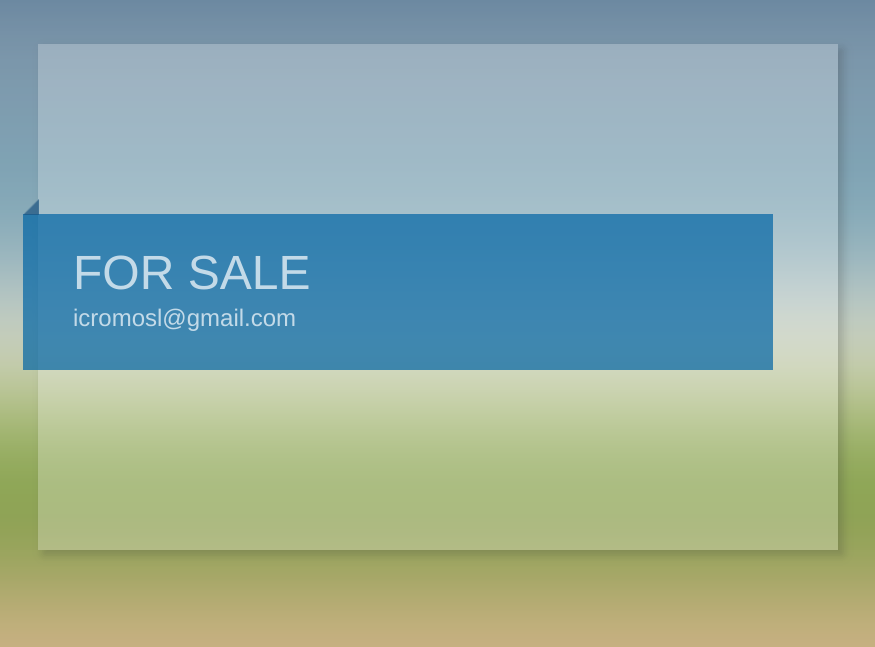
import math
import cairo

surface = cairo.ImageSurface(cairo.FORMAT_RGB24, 875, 647)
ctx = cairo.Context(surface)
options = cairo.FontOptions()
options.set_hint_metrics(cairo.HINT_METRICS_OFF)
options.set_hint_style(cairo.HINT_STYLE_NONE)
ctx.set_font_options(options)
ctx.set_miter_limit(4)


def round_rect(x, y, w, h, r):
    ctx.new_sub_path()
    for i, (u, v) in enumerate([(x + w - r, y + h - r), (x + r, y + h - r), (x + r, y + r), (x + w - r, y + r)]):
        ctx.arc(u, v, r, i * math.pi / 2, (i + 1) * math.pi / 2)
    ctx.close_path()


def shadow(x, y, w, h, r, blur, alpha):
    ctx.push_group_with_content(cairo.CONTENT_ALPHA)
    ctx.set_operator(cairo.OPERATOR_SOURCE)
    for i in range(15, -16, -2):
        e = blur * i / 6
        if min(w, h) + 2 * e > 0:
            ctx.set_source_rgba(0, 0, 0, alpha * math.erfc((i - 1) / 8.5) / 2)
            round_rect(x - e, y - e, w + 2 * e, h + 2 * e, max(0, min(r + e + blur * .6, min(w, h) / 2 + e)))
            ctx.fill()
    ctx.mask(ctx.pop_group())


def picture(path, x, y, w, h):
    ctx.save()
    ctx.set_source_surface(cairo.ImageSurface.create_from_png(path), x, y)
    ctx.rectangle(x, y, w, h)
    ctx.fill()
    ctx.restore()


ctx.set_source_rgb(1, 1, 1)
ctx.paint()
picture("img1.png", 0, 0, 875, 647)
ctx.save()
ctx.set_fill_rule(cairo.FILL_RULE_EVEN_ODD)
ctx.new_path()
ctx.move_to(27, 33)
ctx.line_to(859, 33)
ctx.line_to(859, 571)
ctx.line_to(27, 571)
ctx.close_path()
ctx.move_to(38, 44)
ctx.line_to(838, 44)
ctx.line_to(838, 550)
ctx.line_to(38, 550)
ctx.close_path()
ctx.clip()
ctx.set_source_rgb(0.196, 0.196, 0.196)
shadow(43, 49, 800, 506, 0, 5, 0.25)
ctx.restore()
ctx.set_source_rgba(1, 1, 1, 0.25)
ctx.rectangle(38, 44, 800, 506)
ctx.fill()
ctx.set_source_rgba(0, 0.392, 0.647, 0.7)
ctx.rectangle(23, 214, 750, 156)
ctx.fill()
picture("img2.png", 23, 199, 16, 16)
ctx.select_font_face("Liberation Sans")
ctx.set_font_size(48)
ctx.set_source_rgb(0.765, 0.855, 0.91)
ctx.move_to(73, 289)
ctx.show_text("FOR SALE")
ctx.set_font_size(24)
ctx.move_to(73, 326)
ctx.show_text("icromosl@gmail.com")
surface.write_to_png("page.png")
